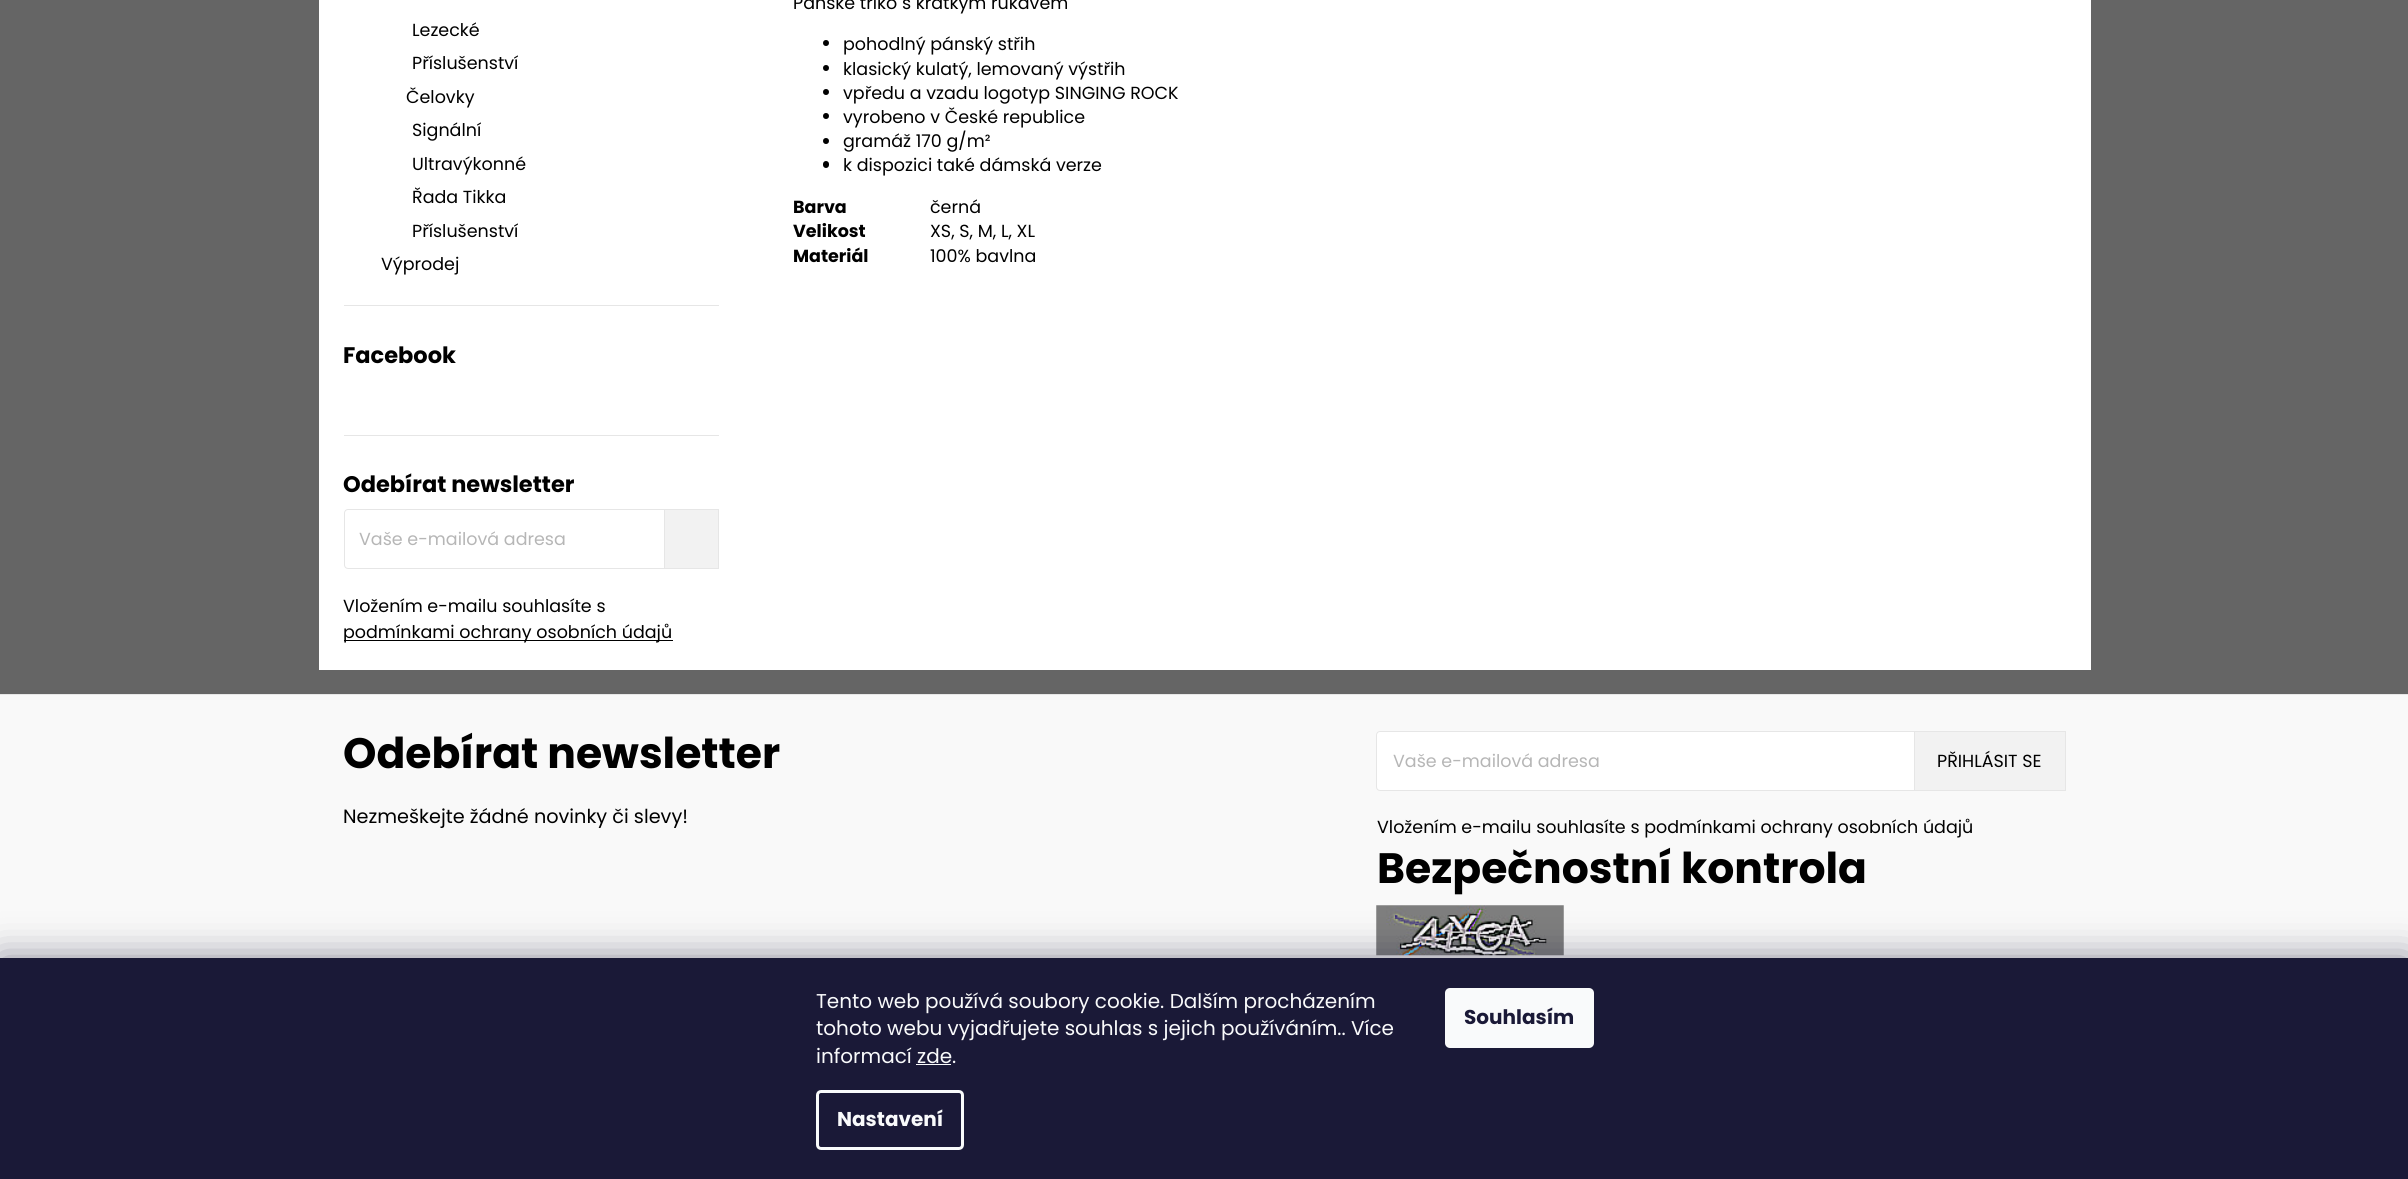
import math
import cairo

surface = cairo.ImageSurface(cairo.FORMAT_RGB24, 2408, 1179)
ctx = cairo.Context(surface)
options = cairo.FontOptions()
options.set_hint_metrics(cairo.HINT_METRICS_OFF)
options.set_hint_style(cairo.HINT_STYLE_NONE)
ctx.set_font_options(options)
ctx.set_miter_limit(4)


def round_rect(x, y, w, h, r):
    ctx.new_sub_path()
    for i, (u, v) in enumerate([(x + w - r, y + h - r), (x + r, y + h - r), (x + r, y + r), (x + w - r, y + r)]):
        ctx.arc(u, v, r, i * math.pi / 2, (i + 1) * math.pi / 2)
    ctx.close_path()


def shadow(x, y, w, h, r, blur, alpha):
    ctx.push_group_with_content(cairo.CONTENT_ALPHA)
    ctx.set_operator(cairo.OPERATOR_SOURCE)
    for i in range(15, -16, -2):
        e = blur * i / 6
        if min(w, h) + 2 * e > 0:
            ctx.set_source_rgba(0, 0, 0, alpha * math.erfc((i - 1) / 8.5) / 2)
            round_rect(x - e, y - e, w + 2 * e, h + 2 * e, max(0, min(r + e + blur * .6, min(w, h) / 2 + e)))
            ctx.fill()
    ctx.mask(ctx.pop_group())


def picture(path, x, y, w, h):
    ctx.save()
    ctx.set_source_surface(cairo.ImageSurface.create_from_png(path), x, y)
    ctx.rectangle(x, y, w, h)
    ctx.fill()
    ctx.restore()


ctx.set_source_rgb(0.396, 0.396, 0.396)
ctx.paint()
ctx.set_source_rgb(1, 1, 1)
ctx.rectangle(319, 0, 1772, 670)
ctx.fill()
ctx.select_font_face("Poppins")
ctx.set_font_size(17.5)
ctx.set_source_rgb(0, 0, 0)
ctx.move_to(412, 36)
ctx.show_text("Lezecké")
ctx.move_to(412, 69)
ctx.show_text("Příslušenství")
ctx.move_to(406, 103)
ctx.show_text("Čelovky")
ctx.move_to(412, 136)
ctx.show_text("Signální")
ctx.move_to(412, 170)
ctx.show_text("Ultravýkonné")
ctx.move_to(412, 203)
ctx.show_text("Řada Tikka")
ctx.move_to(412, 237)
ctx.show_text("Příslušenství")
ctx.move_to(381, 270)
ctx.show_text("Výprodej")
ctx.set_source_rgb(0.902, 0.902, 0.902)
ctx.rectangle(344, 305, 375, 1)
ctx.fill()
ctx.select_font_face("Poppins", cairo.FONT_SLANT_NORMAL, cairo.FONT_WEIGHT_BOLD)
ctx.set_font_size(22.5)
ctx.set_source_rgb(0, 0, 0)
ctx.move_to(343, 363)
ctx.show_text("Facebook")
ctx.set_source_rgb(0.902, 0.902, 0.902)
ctx.rectangle(344, 435, 375, 1)
ctx.fill()
ctx.set_source_rgb(0, 0, 0)
ctx.move_to(343, 492)
ctx.show_text("Odebírat newsletter")
round_rect(344.5, 509.5, 374, 59, 3.5)
ctx.set_source_rgb(0.902, 0.902, 0.902)
ctx.set_line_width(1)
ctx.stroke()
ctx.select_font_face("Poppins")
ctx.set_font_size(17.5)
ctx.set_source_rgb(0.714, 0.714, 0.714)
ctx.move_to(359, 545)
ctx.show_text("Vaše e-mailová adresa")
ctx.set_source_rgb(0.949, 0.949, 0.949)
ctx.rectangle(664.5, 509.5, 54, 59)
ctx.fill_preserve()
ctx.set_source_rgb(0.902, 0.902, 0.902)
ctx.stroke()
ctx.set_source_rgb(0, 0, 0)
ctx.move_to(343, 612)
ctx.show_text("Vložením e-mailu souhlasíte s")
ctx.rectangle(344, 640, 329, 1)
ctx.fill()
ctx.move_to(343, 638)
ctx.show_text("podmínkami ochrany osobních údajů")
ctx.move_to(793, 9)
ctx.show_text("Pánské triko s krátkým rukávem")
ctx.new_path()
ctx.arc(826, 43, 3, 0, 2 * math.pi)
ctx.fill()
ctx.move_to(843, 50)
ctx.show_text("pohodlný pánský střih")
ctx.new_path()
ctx.arc(826, 68, 3, 0, 2 * math.pi)
ctx.fill()
ctx.move_to(843, 75)
ctx.show_text("klasický kulatý, lemovaný výstřih")
ctx.new_path()
ctx.arc(826, 92, 3, 0, 2 * math.pi)
ctx.fill()
ctx.move_to(843, 99)
ctx.show_text("vpředu a vzadu logotyp SINGING ROCK")
ctx.new_path()
ctx.arc(826, 116, 3, 0, 2 * math.pi)
ctx.fill()
ctx.move_to(843, 123)
ctx.show_text("vyrobeno v České republice")
ctx.new_path()
ctx.arc(826, 141, 3, 0, 2 * math.pi)
ctx.fill()
ctx.move_to(843, 147)
ctx.show_text("gramáž 170 g/m²")
round_rect(823, 161, 6, 7, 3)
ctx.fill()
ctx.move_to(843, 171)
ctx.show_text("k dispozici také dámská verze")
ctx.select_font_face("Poppins", cairo.FONT_SLANT_NORMAL, cairo.FONT_WEIGHT_BOLD)
ctx.move_to(793, 213)
ctx.show_text("Barva")
ctx.select_font_face("Poppins")
ctx.move_to(930, 213)
ctx.show_text("černá")
ctx.select_font_face("Poppins", cairo.FONT_SLANT_NORMAL, cairo.FONT_WEIGHT_BOLD)
ctx.move_to(793, 237)
ctx.show_text("Velikost")
ctx.select_font_face("Poppins")
ctx.move_to(930, 237)
ctx.show_text("XS, S, M, L, XL")
ctx.select_font_face("Poppins", cairo.FONT_SLANT_NORMAL, cairo.FONT_WEIGHT_BOLD)
ctx.move_to(793, 262)
ctx.show_text("Materiál")
ctx.select_font_face("Poppins")
ctx.move_to(930, 262)
ctx.show_text("100% bavlna")
ctx.set_source_rgb(0.976, 0.976, 0.976)
ctx.rectangle(0, 695, 2408, 263)
ctx.fill()
ctx.set_source_rgb(0.902, 0.902, 0.902)
ctx.rectangle(0, 694, 2408, 1)
ctx.fill()
ctx.select_font_face("Poppins", cairo.FONT_SLANT_NORMAL, cairo.FONT_WEIGHT_BOLD)
ctx.set_font_size(42.5)
ctx.set_source_rgb(0, 0, 0)
ctx.move_to(343, 768)
ctx.show_text("Odebírat newsletter")
ctx.select_font_face("Poppins")
ctx.set_font_size(19.25)
ctx.move_to(343, 823)
ctx.show_text("Nezmeškejte žádné novinky či slevy!")
ctx.set_source_rgb(1, 1, 1)
round_rect(1376.5, 731.5, 689, 59, 3.5)
ctx.fill_preserve()
ctx.set_source_rgb(0.902, 0.902, 0.902)
ctx.stroke()
ctx.set_font_size(17.5)
ctx.set_source_rgb(0.714, 0.714, 0.714)
ctx.move_to(1393, 767)
ctx.show_text("Vaše e-mailová adresa")
ctx.set_source_rgb(0.949, 0.949, 0.949)
ctx.rectangle(1914.5, 731.5, 151, 59)
ctx.fill_preserve()
ctx.set_source_rgb(0.902, 0.902, 0.902)
ctx.stroke()
ctx.set_source_rgb(0, 0, 0)
ctx.move_to(1937, 767)
ctx.show_text("PŘIHLÁSIT SE")
ctx.move_to(1377, 833)
ctx.show_text("Vložením e-mailu souhlasíte s podmínkami ochrany osobních údajů")
ctx.select_font_face("Poppins", cairo.FONT_SLANT_NORMAL, cairo.FONT_WEIGHT_BOLD)
ctx.set_font_size(42.5)
ctx.move_to(1377, 883)
ctx.show_text("Bezpečnostní kontrola")
picture("img1.png", 1376, 905, 188, 51)
ctx.set_source_rgb(0.106, 0.098, 0.224)
shadow(0, 958, 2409, 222, 0, 19, 0.5)
ctx.set_source_rgb(0.102, 0.098, 0.216)
ctx.rectangle(0, 958, 2408, 221)
ctx.fill()
ctx.select_font_face("Poppins")
ctx.set_font_size(20)
ctx.set_source_rgb(0.973, 0.98, 0.984)
ctx.move_to(816, 1008)
ctx.show_text("Tento web používá soubory cookie. Dalším procházením")
ctx.move_to(816, 1035)
ctx.show_text("tohoto webu vyjadřujete souhlas s jejich používáním.. Více")
ctx.move_to(816, 1063)
ctx.show_text("informací zde.")
ctx.rectangle(916, 1064, 35, 1)
ctx.fill()
round_rect(817.5, 1091.5, 145, 57, 3.5)
ctx.set_line_width(3)
ctx.stroke()
ctx.select_font_face("Poppins", cairo.FONT_SLANT_NORMAL, cairo.FONT_WEIGHT_BOLD)
ctx.move_to(837, 1126)
ctx.show_text("Nastavení")
round_rect(1445, 988, 149, 60, 5)
ctx.fill()
ctx.set_source_rgb(0.102, 0.098, 0.216)
ctx.move_to(1464, 1024)
ctx.show_text("Souhlasím")
surface.write_to_png("page.png")
